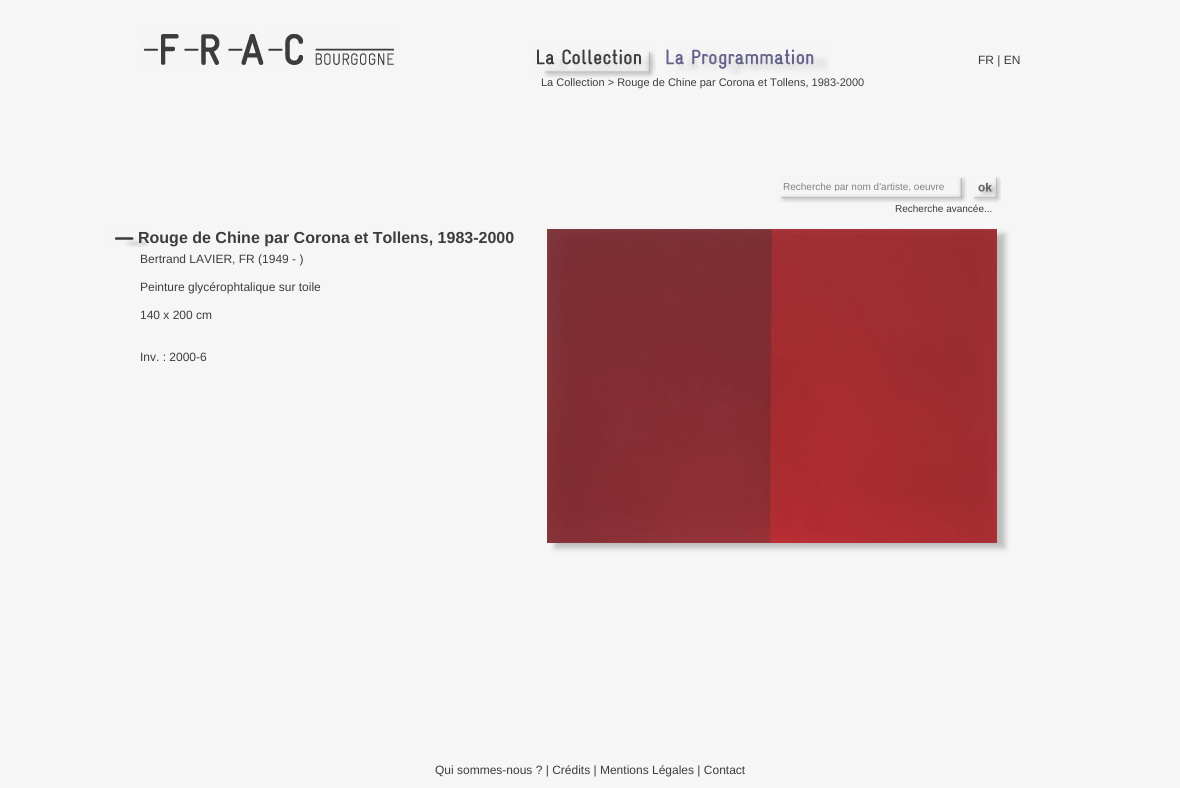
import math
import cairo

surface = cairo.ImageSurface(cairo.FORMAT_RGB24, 1180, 788)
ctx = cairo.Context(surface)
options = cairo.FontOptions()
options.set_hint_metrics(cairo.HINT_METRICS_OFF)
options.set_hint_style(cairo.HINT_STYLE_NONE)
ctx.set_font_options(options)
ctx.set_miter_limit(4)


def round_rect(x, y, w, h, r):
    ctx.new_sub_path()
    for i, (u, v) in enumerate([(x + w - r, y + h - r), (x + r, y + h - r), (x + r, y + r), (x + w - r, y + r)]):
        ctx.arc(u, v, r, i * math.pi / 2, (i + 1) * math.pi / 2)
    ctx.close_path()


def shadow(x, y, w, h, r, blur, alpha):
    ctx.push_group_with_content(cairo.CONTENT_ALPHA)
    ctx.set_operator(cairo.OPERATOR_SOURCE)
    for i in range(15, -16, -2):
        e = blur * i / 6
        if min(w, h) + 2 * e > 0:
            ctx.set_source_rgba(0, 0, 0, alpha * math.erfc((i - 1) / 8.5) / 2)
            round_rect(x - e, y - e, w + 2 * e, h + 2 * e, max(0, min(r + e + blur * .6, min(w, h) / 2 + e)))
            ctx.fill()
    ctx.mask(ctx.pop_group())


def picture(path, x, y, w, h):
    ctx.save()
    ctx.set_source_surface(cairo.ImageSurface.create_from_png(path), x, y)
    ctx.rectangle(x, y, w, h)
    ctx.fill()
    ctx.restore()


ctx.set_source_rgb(0.961, 0.961, 0.961)
ctx.paint()
picture("img1.png", 140, 30, 256, 40)
picture("img2.png", 534, 46, 122, 32)
picture("img3.png", 664, 46, 165, 29)
ctx.select_font_face("Liberation Sans")
ctx.set_font_size(12)
ctx.set_source_rgb(0.235, 0.235, 0.235)
ctx.move_to(978, 64)
ctx.show_text("FR | EN")
ctx.set_font_size(11)
ctx.move_to(541, 86)
ctx.show_text("La Collection > Rouge de Chine par Corona et Tollens, 1983-2000")
picture("img4.png", 778, 176, 189, 27)
picture("img5.png", 972, 176, 29, 27)
ctx.set_source_rgb(0.961, 0.961, 0.961)
ctx.rectangle(954, 181, 4, 1)
ctx.fill()
ctx.save()
ctx.rectangle(783, 181, 175, 10)
ctx.clip()
ctx.set_font_size(10)
ctx.set_source_rgb(0.502, 0.502, 0.502)
ctx.move_to(783, 190)
ctx.show_text("Recherche par nom d'artiste, oeuvre")
ctx.restore()
ctx.set_font_size(10)
ctx.set_source_rgb(0.235, 0.235, 0.235)
ctx.move_to(895, 212)
ctx.show_text("Recherche avancée...")
picture("img6.png", 110, 231, 40, 16)
ctx.select_font_face("Liberation Sans", cairo.FONT_SLANT_NORMAL, cairo.FONT_WEIGHT_BOLD)
ctx.set_font_size(16)
ctx.move_to(138, 243)
ctx.show_text("Rouge de Chine par Corona et Tollens, 1983-2000")
ctx.set_source_rgb(0.733, 0.733, 0.733)
shadow(555, 234, 450, 314, 0, 3, 1)
picture("img7.png", 547, 229, 450, 314)
ctx.select_font_face("Liberation Sans")
ctx.set_font_size(12)
ctx.set_source_rgb(0.235, 0.235, 0.235)
ctx.move_to(140, 263)
ctx.show_text("Bertrand LAVIER, FR (1949 - )")
ctx.move_to(140, 291)
ctx.show_text("Peinture glycérophtalique sur toile")
ctx.move_to(140, 319)
ctx.show_text("140 x 200 cm")
ctx.move_to(140, 361)
ctx.show_text("Inv. : 2000-6")
ctx.move_to(435, 774)
ctx.show_text("Qui sommes-nous ? | Crédits | Mentions Légales | Contact")
surface.write_to_png("page.png")
